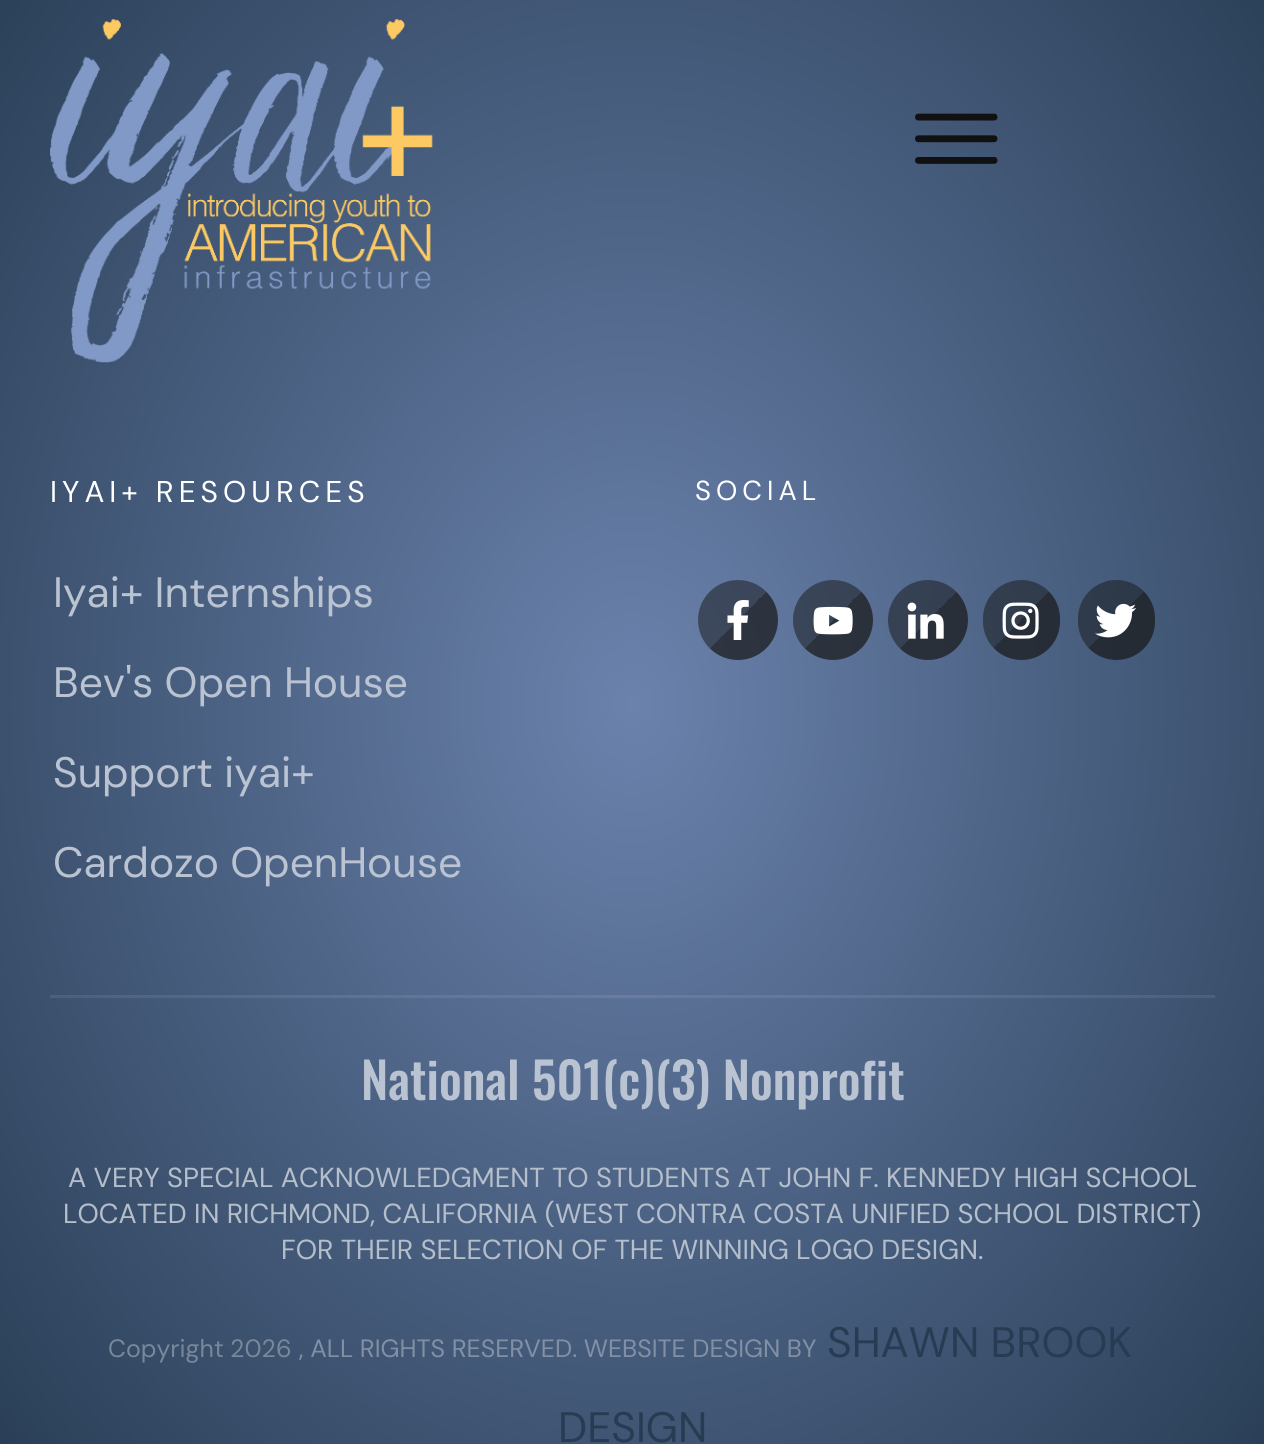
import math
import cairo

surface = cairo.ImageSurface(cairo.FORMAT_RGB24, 1264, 1444)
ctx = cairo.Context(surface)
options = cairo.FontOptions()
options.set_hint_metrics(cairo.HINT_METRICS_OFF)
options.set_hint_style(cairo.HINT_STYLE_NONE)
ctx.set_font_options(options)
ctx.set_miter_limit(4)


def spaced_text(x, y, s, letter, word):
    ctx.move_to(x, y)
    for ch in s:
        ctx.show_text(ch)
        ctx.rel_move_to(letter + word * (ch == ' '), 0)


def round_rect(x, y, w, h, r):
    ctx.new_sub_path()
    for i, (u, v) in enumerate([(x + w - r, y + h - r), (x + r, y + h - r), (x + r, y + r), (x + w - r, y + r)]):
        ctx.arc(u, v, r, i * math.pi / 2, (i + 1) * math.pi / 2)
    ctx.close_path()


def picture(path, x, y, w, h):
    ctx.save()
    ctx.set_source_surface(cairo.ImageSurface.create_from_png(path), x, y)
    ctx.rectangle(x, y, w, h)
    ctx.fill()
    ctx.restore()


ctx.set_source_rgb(1, 1, 1)
ctx.paint()
gradient = cairo.RadialGradient(0, 0, 0, 0, 0, 1)
gradient.set_matrix(cairo.Matrix(1 / 894, 0, 0, 1 / 1154, -1 * 633 / 894, -1 * 704 / 1154))
gradient.add_color_stop_rgba(0, 0.42, 0.51, 0.678, 1)
gradient.add_color_stop_rgba(1, 0.153, 0.235, 0.325, 1)
ctx.set_source(gradient)
ctx.rectangle(0, 0, 1264, 1444)
ctx.fill()
gradient = cairo.RadialGradient(0, 0, 0, 0, 0, 1)
gradient.set_matrix(cairo.Matrix(1 / 894, 0, 0, 1 / 1154, -1 * 633 / 894, -1 * 704 / 1154))
gradient.add_color_stop_rgba(0, 0.467, 0.549, 0.706, 1)
gradient.add_color_stop_rgba(1, 0.22, 0.298, 0.38, 1)
ctx.set_source(gradient)
ctx.rectangle(50, 995, 1165, 3)
ctx.fill()
picture("img1.png", 50, 19, 383, 344)
picture("img2.png", 915, 113, 83, 51)
ctx.select_font_face("DM Sans")
ctx.set_font_size(30)
ctx.set_source_rgb(1, 1, 1)
spaced_text(50, 502, "IYAI+ RESOURCES", 5, 0)
ctx.set_font_size(42.5)
ctx.set_source_rgb(0.729, 0.765, 0.82)
ctx.move_to(53, 607)
ctx.show_text("Iyai+ Internships")
ctx.move_to(53, 697)
ctx.show_text("Bev's Open House")
ctx.move_to(53, 787)
ctx.show_text("Support iyai+")
ctx.move_to(53, 877)
ctx.show_text("Cardozo OpenHouse")
ctx.set_font_size(27.5)
ctx.set_source_rgb(1, 1, 1)
spaced_text(695, 500, "SOCIAL", 5, 0)
gradient = cairo.LinearGradient(698, 580, 778, 660)
gradient.add_color_stop_rgba(0.5, 0.09, 0.09, 0.086, 0.5)
gradient.add_color_stop_rgba(0.5, 0.09, 0.09, 0.086, 0.7)
ctx.set_source(gradient)
ctx.new_path()
ctx.arc(738, 620, 40, 0, 2 * math.pi)
ctx.fill()
picture("img3.png", 727, 600, 22, 40)
gradient = cairo.LinearGradient(793, 580, 873, 660)
gradient.add_color_stop_rgba(0.5, 0.09, 0.09, 0.086, 0.5)
gradient.add_color_stop_rgba(0.5, 0.09, 0.09, 0.086, 0.7)
ctx.set_source(gradient)
ctx.arc(833, 620, 40, 0, 2 * math.pi)
ctx.fill()
picture("img4.png", 813, 606, 40, 29)
gradient = cairo.LinearGradient(888, 580, 968, 660)
gradient.add_color_stop_rgba(0.5, 0.09, 0.09, 0.086, 0.5)
gradient.add_color_stop_rgba(0.5, 0.09, 0.09, 0.086, 0.7)
ctx.set_source(gradient)
ctx.arc(928, 620, 40, 0, 2 * math.pi)
ctx.fill()
picture("img5.png", 907, 602, 37, 37)
gradient = cairo.LinearGradient(981, 581, 1061, 659)
gradient.add_color_stop_rgba(0.5, 0.09, 0.09, 0.086, 0.5)
gradient.add_color_stop_rgba(0.5, 0.09, 0.09, 0.086, 0.7)
ctx.set_source(gradient)
round_rect(983, 580, 77, 80, 38.5)
ctx.fill()
picture("img6.png", 1002, 602, 37, 37)
gradient = cairo.LinearGradient(1076, 581, 1156, 659)
gradient.add_color_stop_rgba(0.5, 0.09, 0.09, 0.086, 0.5)
gradient.add_color_stop_rgba(0.5, 0.09, 0.09, 0.086, 0.7)
ctx.set_source(gradient)
round_rect(1078, 580, 77, 80, 38.5)
ctx.fill()
picture("img7.png", 1095, 603, 41, 35)
ctx.select_font_face("Oswald Medium")
ctx.set_font_size(50)
ctx.set_source_rgb(0.729, 0.765, 0.82)
ctx.move_to(361, 1100)
ctx.show_text("National 501(c)(3) Nonprofit")
ctx.select_font_face("DM Sans")
ctx.set_font_size(27.5)
ctx.set_source_rgb(0.71, 0.745, 0.796)
ctx.move_to(68, 1187)
ctx.show_text("A VERY SPECIAL ACKNOWLEDGMENT TO STUDENTS AT JOHN F. KENNEDY HIGH SCHOOL")
ctx.move_to(63, 1223)
ctx.show_text("LOCATED IN RICHMOND, CALIFORNIA (WEST CONTRA COSTA UNIFIED SCHOOL DISTRICT)")
ctx.move_to(281, 1259)
ctx.show_text("FOR THEIR SELECTION OF THE WINNING LOGO DESIGN.")
ctx.set_font_size(25)
ctx.set_source_rgb(0.475, 0.529, 0.604)
ctx.move_to(108, 1357)
ctx.show_text("Copyright")
ctx.move_to(230, 1357)
ctx.show_text("2026")
ctx.set_source_rgb(0.506, 0.565, 0.647)
ctx.move_to(299, 1357)
ctx.show_text(", ALL RIGHTS RESERVED. WEBSITE DESIGN BY")
ctx.set_font_size(42.5)
ctx.set_source_rgb(0.153, 0.235, 0.325)
ctx.move_to(827, 1357)
ctx.show_text("SHAWN BROOK")
ctx.move_to(558, 1442)
ctx.show_text("DESIGN")
surface.write_to_png("page.png")
